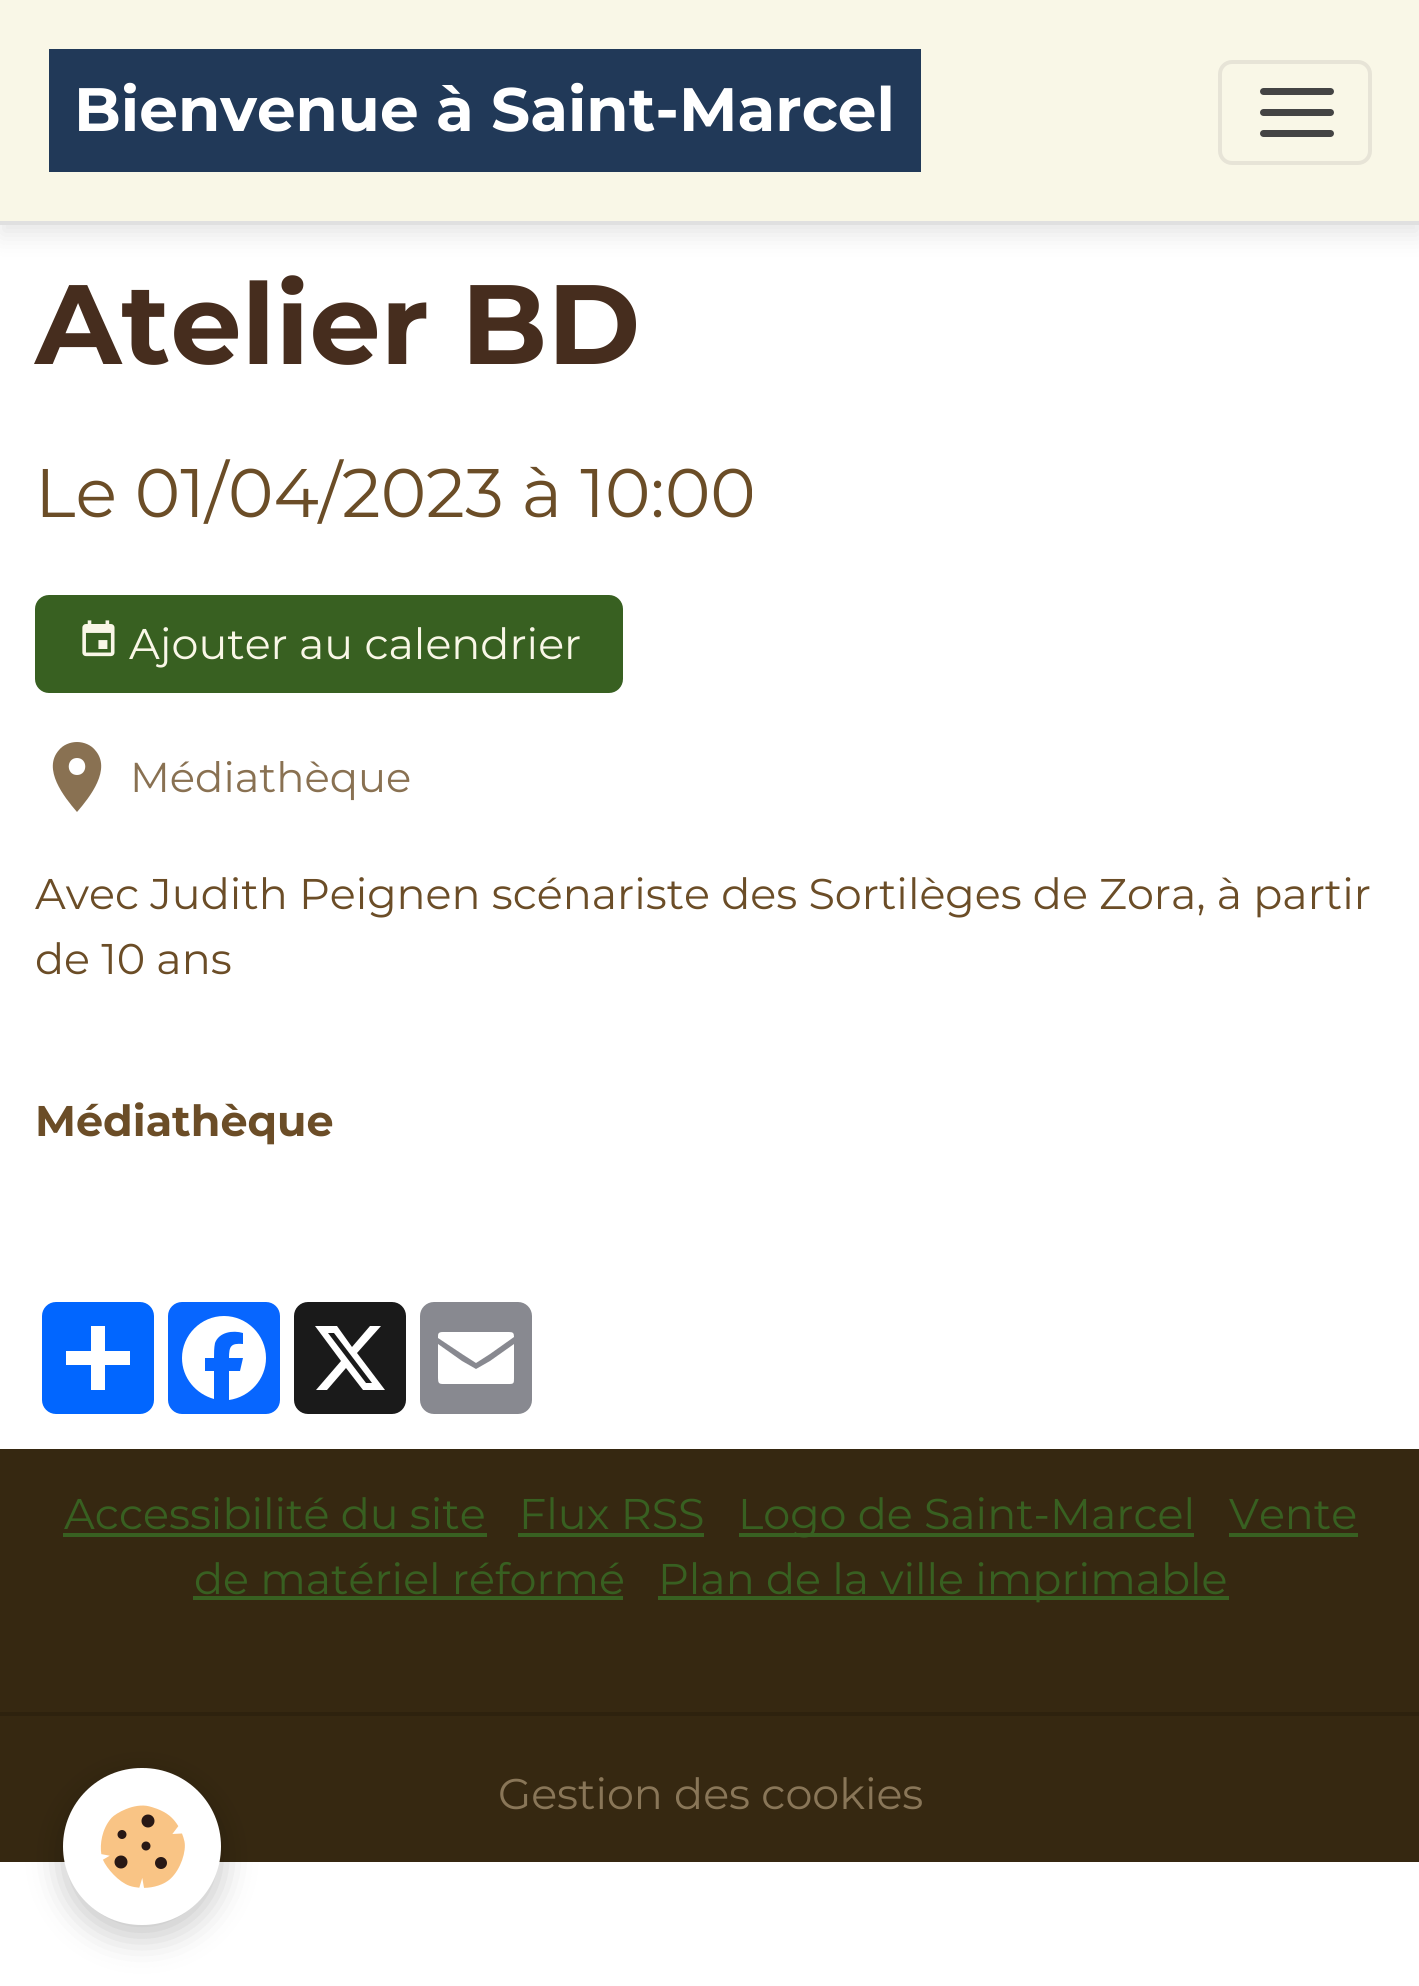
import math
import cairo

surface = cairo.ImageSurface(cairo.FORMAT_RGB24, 1419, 1986)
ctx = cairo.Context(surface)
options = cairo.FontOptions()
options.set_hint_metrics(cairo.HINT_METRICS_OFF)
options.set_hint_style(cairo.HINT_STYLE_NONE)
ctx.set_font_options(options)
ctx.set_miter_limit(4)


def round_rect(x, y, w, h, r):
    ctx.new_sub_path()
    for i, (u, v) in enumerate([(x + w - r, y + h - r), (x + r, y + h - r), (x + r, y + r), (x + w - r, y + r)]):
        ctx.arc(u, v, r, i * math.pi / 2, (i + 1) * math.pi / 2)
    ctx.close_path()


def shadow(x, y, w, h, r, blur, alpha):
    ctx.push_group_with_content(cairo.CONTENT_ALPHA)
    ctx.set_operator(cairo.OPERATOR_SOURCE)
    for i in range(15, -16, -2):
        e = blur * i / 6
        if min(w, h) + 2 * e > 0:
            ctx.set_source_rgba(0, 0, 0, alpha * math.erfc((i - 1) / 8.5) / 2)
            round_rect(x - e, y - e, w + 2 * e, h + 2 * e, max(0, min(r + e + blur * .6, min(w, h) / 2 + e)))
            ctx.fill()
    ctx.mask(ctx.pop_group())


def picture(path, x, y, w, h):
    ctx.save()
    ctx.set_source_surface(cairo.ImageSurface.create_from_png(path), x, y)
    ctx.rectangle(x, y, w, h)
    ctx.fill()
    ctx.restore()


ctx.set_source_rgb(1, 1, 1)
ctx.paint()
ctx.set_source_rgb(0, 0, 0)
shadow(0, 11, 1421, 224, 0, 12, 0.1)
ctx.set_source_rgb(0.976, 0.965, 0.906)
ctx.rectangle(0, 0, 1419, 221)
ctx.fill()
ctx.set_source_rgb(0.878, 0.878, 0.878)
ctx.rectangle(0, 221, 1419, 4)
ctx.fill()
ctx.set_source_rgb(0.129, 0.224, 0.345)
ctx.rectangle(49, 49, 872, 123)
ctx.fill()
ctx.select_font_face("Montserrat", cairo.FONT_SLANT_NORMAL, cairo.FONT_WEIGHT_BOLD)
ctx.set_font_size(61.25)
ctx.set_source_rgb(1, 1, 1)
ctx.move_to(74, 131)
ctx.show_text("Bienvenue à Saint-Marcel")
round_rect(1220, 62, 150, 101, 12)
ctx.set_source_rgb(0.906, 0.894, 0.843)
ctx.set_line_width(4)
ctx.stroke()
ctx.set_source_rgb(0.267, 0.267, 0.267)
round_rect(1260, 88, 74, 7, 3.5)
ctx.fill()
round_rect(1260, 109, 74, 7, 3.5)
ctx.fill()
round_rect(1260, 130, 74, 7, 3.5)
ctx.fill()
ctx.set_font_size(112.75)
ctx.set_source_rgb(0.275, 0.176, 0.118)
ctx.move_to(35, 364)
ctx.show_text("Atelier BD")
ctx.select_font_face("Montserrat")
ctx.set_font_size(68.6)
ctx.set_source_rgb(0.42, 0.302, 0.153)
ctx.move_to(35, 517)
ctx.show_text("Le 01/04/2023 à 10:00")
ctx.set_source_rgb(0.22, 0.376, 0.129)
round_rect(37, 597, 584, 94, 12)
ctx.fill_preserve()
ctx.stroke()
picture("img1.png", 82, 620, 33, 37)
ctx.set_font_size(42.9)
ctx.set_source_rgb(0.976, 0.965, 0.906)
ctx.move_to(129, 659)
ctx.show_text("Ajouter au calendrier")
ctx.set_source_rgb(0.537, 0.443, 0.322)
ctx.new_path()
ctx.move_to(77, 742)
ctx.curve_to(84, 742, 91, 745, 95, 750)
ctx.curve_to(112, 769, 90, 797, 77, 812)
ctx.curve_to(64, 797, 42, 769, 59, 750)
ctx.curve_to(63, 745, 70, 742, 77, 742)
ctx.close_path()
ctx.move_to(77, 775)
ctx.curve_to(88, 775, 88, 758, 77, 758)
ctx.curve_to(66, 758, 66, 775, 77, 775)
ctx.close_path()
ctx.fill()
ctx.set_font_size(41.75)
ctx.move_to(130, 792)
ctx.show_text("Médiathèque")
ctx.set_font_size(42.9)
ctx.set_source_rgb(0.42, 0.302, 0.153)
ctx.move_to(35, 909)
ctx.show_text("Avec Judith Peignen scénariste des Sortilèges de Zora, à partir")
ctx.move_to(35, 974)
ctx.show_text("de 10 ans")
ctx.select_font_face("Montserrat", cairo.FONT_SLANT_NORMAL, cairo.FONT_WEIGHT_BOLD)
ctx.move_to(35, 1136)
ctx.show_text("Médiathèque")
ctx.set_source_rgb(0.004, 0.4, 1)
round_rect(42, 1302, 112, 112, 14)
ctx.fill()
ctx.set_source_rgb(1, 1, 1)
ctx.rectangle(91, 1326, 14, 64)
ctx.fill()
ctx.rectangle(66, 1351, 64, 14)
ctx.fill()
ctx.set_source_rgb(0.031, 0.4, 1)
round_rect(168, 1302, 112, 112, 14)
ctx.fill()
ctx.set_source_rgb(1, 1, 1)
ctx.new_path()
ctx.move_to(266, 1358)
ctx.curve_to(266, 1335, 247, 1316, 224, 1316)
ctx.curve_to(201, 1316, 182, 1335, 182, 1358)
ctx.curve_to(182, 1378, 196, 1394, 214, 1399)
ctx.line_to(214, 1371)
ctx.line_to(205, 1371)
ctx.line_to(205, 1358)
ctx.line_to(214, 1358)
ctx.curve_to(214, 1353, 214, 1348, 215, 1343)
ctx.curve_to(219, 1332, 233, 1330, 243, 1333)
ctx.line_to(243, 1344)
ctx.curve_to(231, 1343, 229, 1346, 229, 1358)
ctx.line_to(243, 1358)
ctx.line_to(240, 1371)
ctx.line_to(229, 1371)
ctx.line_to(229, 1400)
ctx.curve_to(250, 1397, 266, 1379, 266, 1358)
ctx.fill()
ctx.set_source_rgb(0.102, 0.102, 0.102)
round_rect(294, 1302, 112, 112, 14)
ctx.fill()
ctx.set_source_rgb(1, 1, 1)
ctx.new_path()
ctx.move_to(370, 1326)
ctx.line_to(381, 1326)
ctx.line_to(357, 1353)
ctx.line_to(385, 1390)
ctx.line_to(363, 1390)
ctx.line_to(346, 1368)
ctx.line_to(327, 1390)
ctx.line_to(316, 1390)
ctx.line_to(341, 1361)
ctx.line_to(315, 1326)
ctx.line_to(337, 1326)
ctx.line_to(352, 1347)
ctx.close_path()
ctx.move_to(366, 1383)
ctx.line_to(372, 1383)
ctx.line_to(334, 1333)
ctx.line_to(328, 1333)
ctx.close_path()
ctx.fill()
ctx.set_source_rgb(0.533, 0.537, 0.565)
round_rect(420, 1302, 112, 112, 14)
ctx.fill()
ctx.set_source_rgb(1, 1, 1)
ctx.new_path()
ctx.move_to(514, 1378)
ctx.line_to(514, 1344)
ctx.line_to(490, 1361)
ctx.line_to(476, 1369)
ctx.line_to(462, 1361)
ctx.line_to(438, 1344)
ctx.line_to(438, 1378)
ctx.curve_to(438, 1383, 439, 1384, 443, 1384)
ctx.line_to(509, 1384)
ctx.curve_to(514, 1384, 514, 1383, 514, 1378)
ctx.move_to(514, 1337)
ctx.curve_to(514, 1333, 513, 1332, 509, 1332)
ctx.line_to(443, 1332)
ctx.curve_to(438, 1332, 438, 1334, 438, 1337)
ctx.line_to(438, 1338)
ctx.line_to(462, 1354)
ctx.line_to(476, 1363)
ctx.line_to(490, 1354)
ctx.close_path()
ctx.fill()
ctx.set_source_rgb(0.212, 0.157, 0.067)
ctx.rectangle(0, 1449, 1419, 413)
ctx.fill()
ctx.select_font_face("Montserrat")
ctx.set_source_rgb(0.22, 0.376, 0.129)
ctx.move_to(64, 1529)
ctx.show_text("Accessibilité du site")
ctx.rectangle(63, 1533, 424, 4)
ctx.fill()
ctx.move_to(519, 1529)
ctx.show_text("Flux RSS")
ctx.rectangle(518, 1533, 186, 4)
ctx.fill()
ctx.rectangle(739, 1533, 455, 4)
ctx.fill()
ctx.move_to(738, 1529)
ctx.show_text("Logo de Saint-Marcel")
ctx.move_to(1229, 1529)
ctx.show_text("Vente")
ctx.rectangle(1229, 1533, 129, 4)
ctx.fill()
ctx.move_to(194, 1594)
ctx.show_text("de matériel réformé")
ctx.rectangle(193, 1596, 430, 4)
ctx.fill()
ctx.rectangle(658, 1596, 571, 4)
ctx.fill()
ctx.move_to(658, 1594)
ctx.show_text("Plan de la ville imprimable")
ctx.set_source_rgb(0.18, 0.133, 0.055)
ctx.rectangle(0, 1712, 1419, 4)
ctx.fill()
ctx.set_source_rgb(0.537, 0.463, 0.345)
ctx.move_to(498, 1809)
ctx.show_text("Gestion des cookies")
ctx.set_source_rgb(0, 0, 0)
shadow(63, 1778, 158, 158, 79, 17.5, 0.24)
ctx.set_source_rgb(1, 1, 1)
round_rect(63, 1768, 158, 157, 78.5)
ctx.fill()
picture("img2.png", 100, 1805, 85, 83)
surface.write_to_png("page.png")
